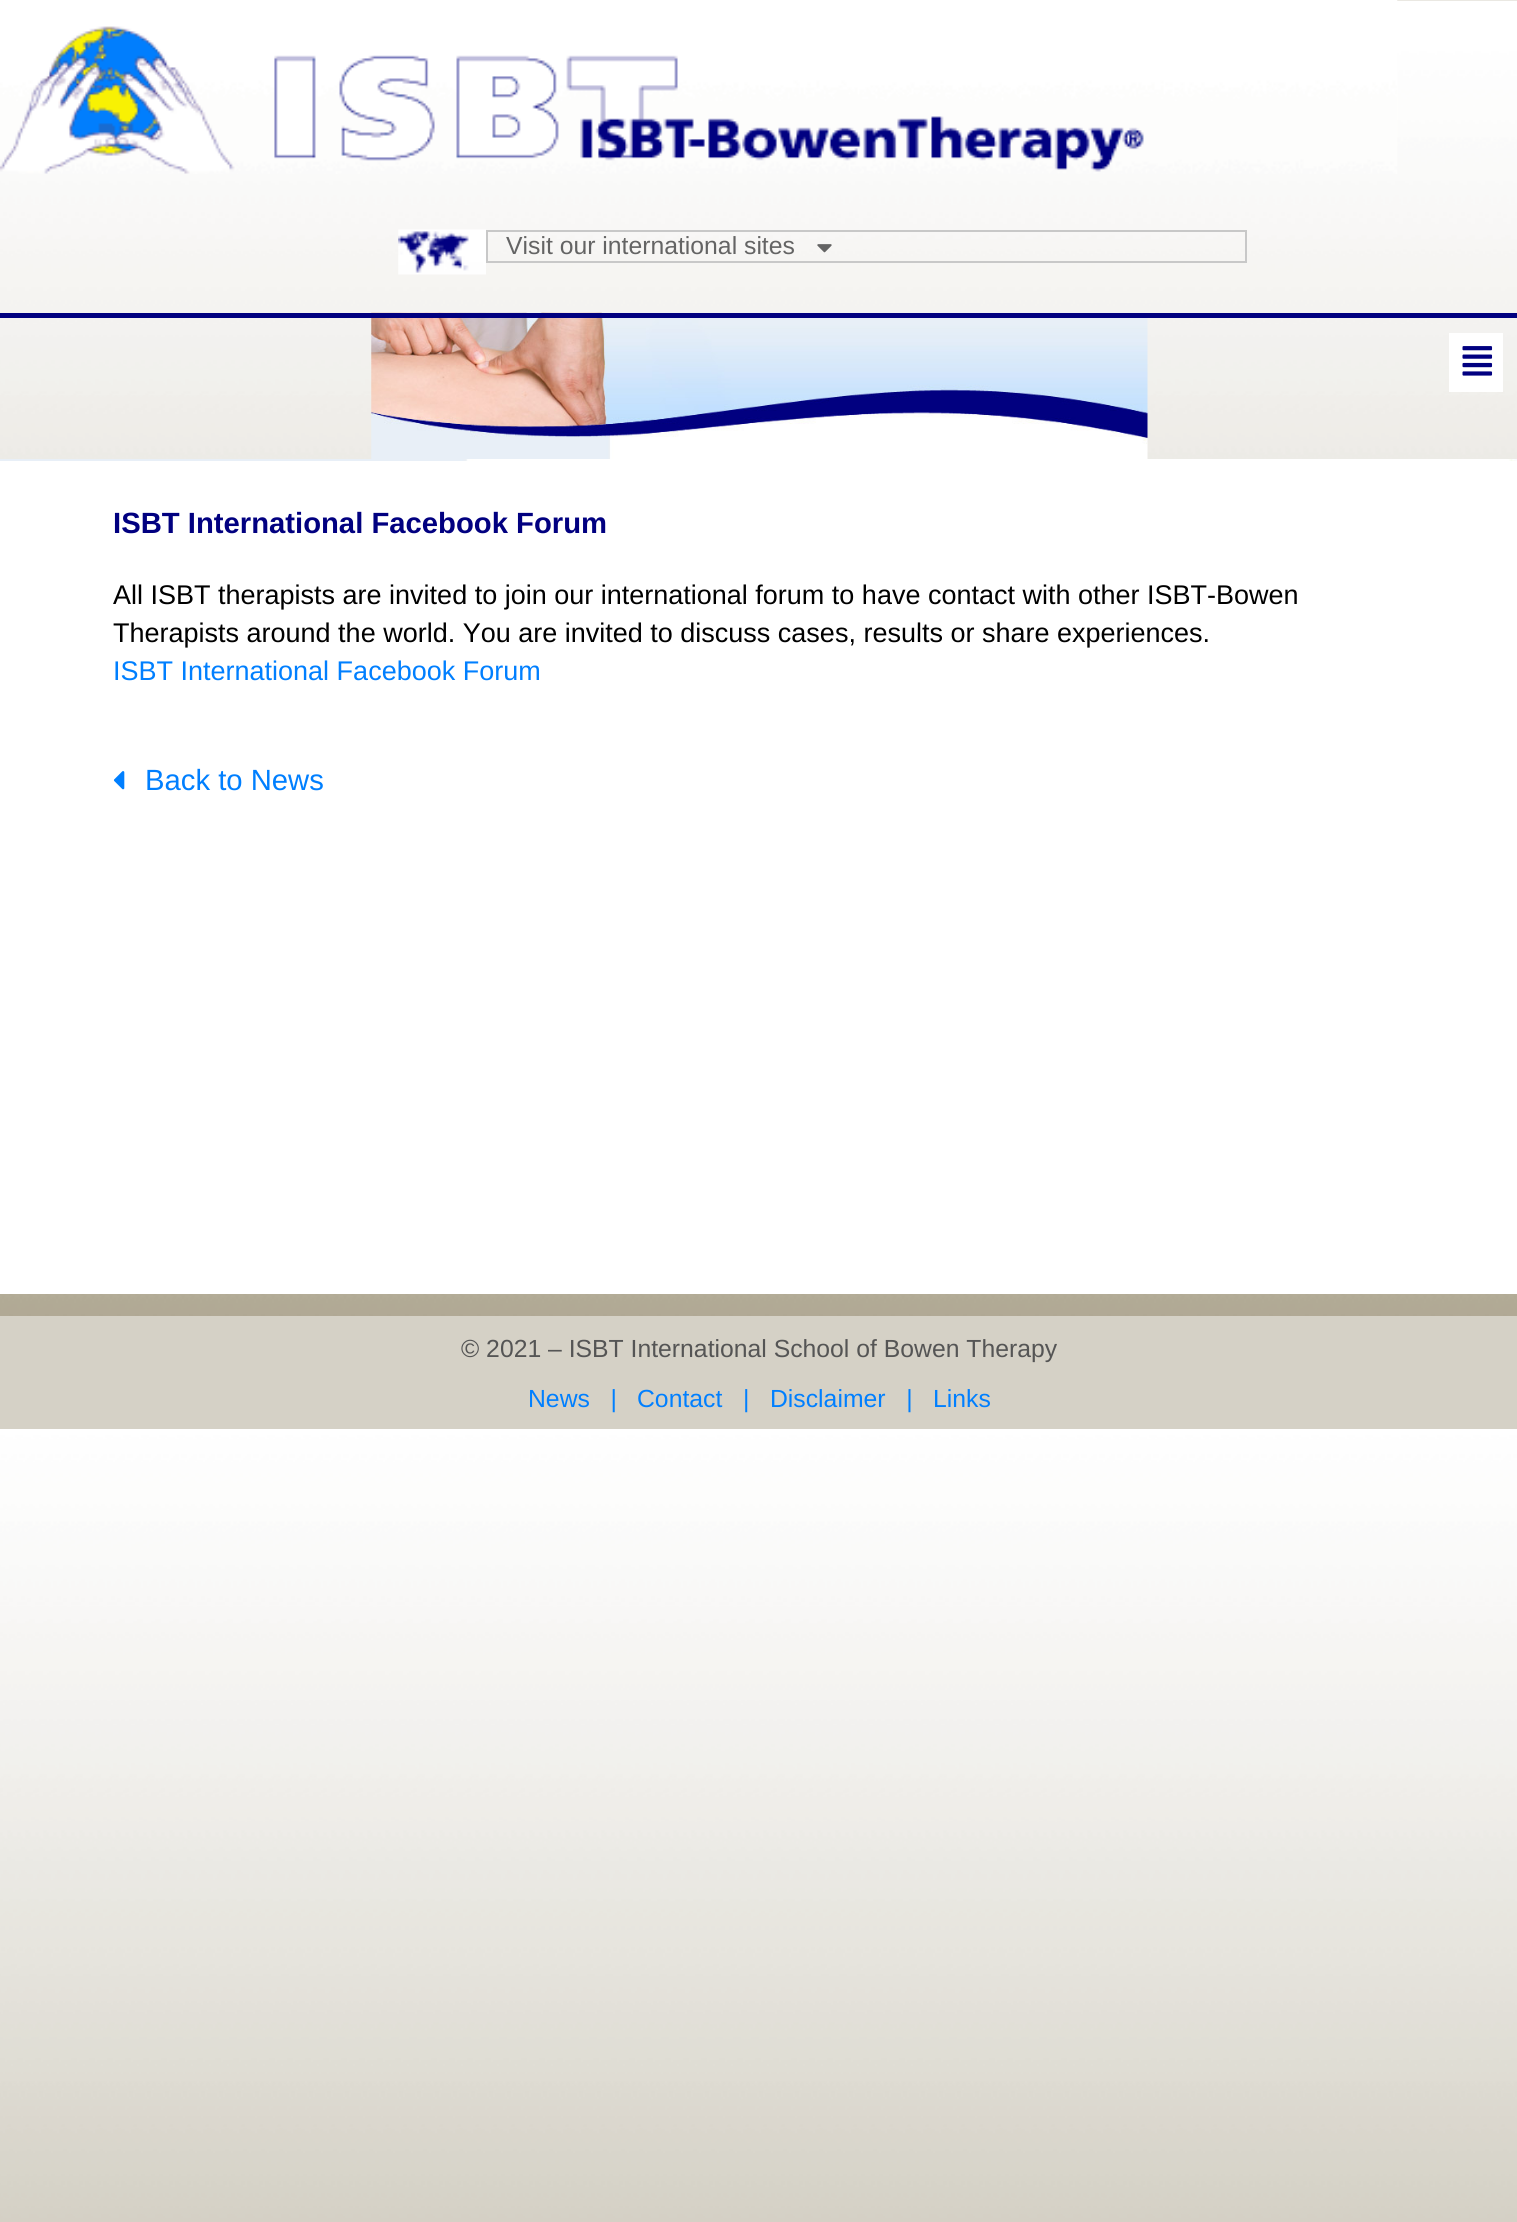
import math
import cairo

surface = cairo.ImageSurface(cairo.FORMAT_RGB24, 1517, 2222)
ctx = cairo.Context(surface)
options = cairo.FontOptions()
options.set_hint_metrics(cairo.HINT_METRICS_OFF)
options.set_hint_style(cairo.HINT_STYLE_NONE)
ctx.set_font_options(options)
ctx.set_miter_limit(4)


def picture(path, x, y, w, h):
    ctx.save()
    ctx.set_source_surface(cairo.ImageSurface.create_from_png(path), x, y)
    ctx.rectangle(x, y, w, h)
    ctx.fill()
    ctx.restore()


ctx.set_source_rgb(1, 1, 1)
ctx.paint()
picture("img1.png", 0, 0, 1517, 2222)
picture("img2.png", 0, 0, 1398, 174)
picture("img3.png", 398, 229, 88, 46)
ctx.rectangle(487, 231, 759, 31)
ctx.set_source_rgb(0.784, 0.784, 0.784)
ctx.stroke()
ctx.select_font_face("Liberation Sans")
ctx.set_font_size(24.75)
ctx.set_source_rgb(0.392, 0.392, 0.392)
ctx.move_to(506, 254)
ctx.show_text("Visit our international sites")
picture("img4.png", 817, 244, 15, 9)
picture("img5.png", 371, 312, 777, 147)
ctx.set_source_rgb(0.004, 0, 0.502)
ctx.rectangle(0, 313, 1517, 5)
ctx.fill()
ctx.set_source_rgb(1, 1, 1)
ctx.rectangle(1449, 333, 54, 59)
ctx.fill()
picture("img6.png", 1462, 346, 31, 30)
picture("img7.png", 0, 459, 1517, 2)
ctx.rectangle(0, 461, 1517, 833)
ctx.fill()
ctx.select_font_face("Liberation Sans", cairo.FONT_SLANT_NORMAL, cairo.FONT_WEIGHT_BOLD)
ctx.set_font_size(29.25)
ctx.set_source_rgb(0.004, 0, 0.502)
ctx.move_to(113, 533)
ctx.show_text("ISBT International Facebook Forum")
ctx.select_font_face("Liberation Sans")
ctx.set_font_size(27)
ctx.set_source_rgb(0, 0, 0)
ctx.move_to(113, 604)
ctx.show_text("All ISBT therapists are invited to join our international forum to have contact with other ISBT-Bowen")
ctx.move_to(113, 642)
ctx.show_text("Therapists around the world. You are invited to discuss cases, results or share experiences.")
ctx.set_source_rgb(0, 0.498, 1)
ctx.move_to(113, 680)
ctx.show_text("ISBT International Facebook Forum")
picture("img8.png", 113, 771, 12, 19)
ctx.set_font_size(29.25)
ctx.move_to(145, 790)
ctx.show_text("Back to News")
ctx.set_source_rgb(0.835, 0.82, 0.776)
ctx.rectangle(0, 1316, 1517, 113)
ctx.fill()
ctx.set_font_size(24.75)
ctx.set_source_rgb(0.333, 0.333, 0.333)
ctx.move_to(461, 1357)
ctx.show_text("© 2021 – ISBT International School of Bowen Therapy")
ctx.set_source_rgb(0, 0.498, 1)
ctx.move_to(528, 1407)
ctx.show_text("News   |")
ctx.move_to(637, 1407)
ctx.show_text("Contact   |")
ctx.move_to(770, 1407)
ctx.show_text("Disclaimer   |")
ctx.move_to(933, 1407)
ctx.show_text("Links")
surface.write_to_png("page.png")
